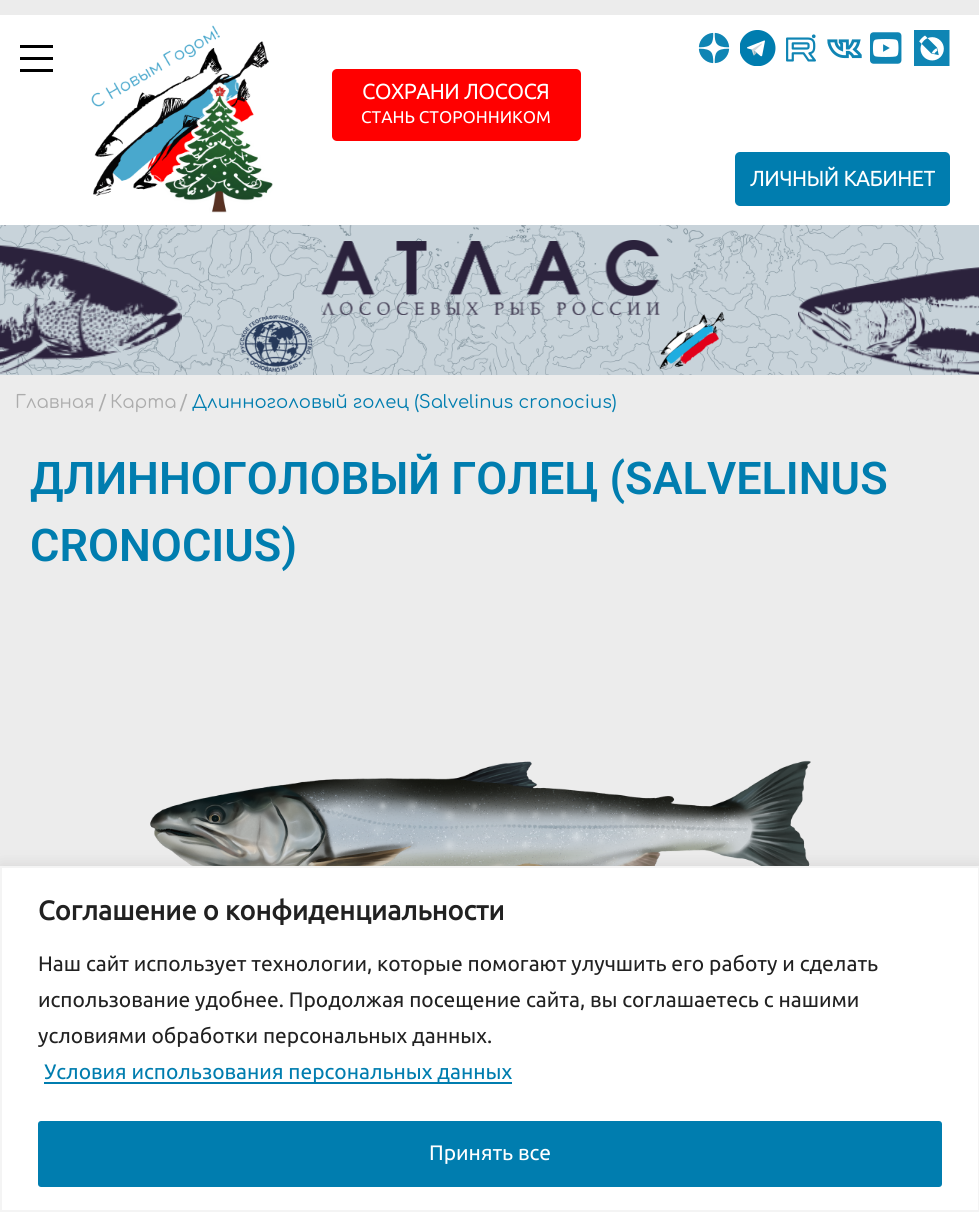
import math
import cairo

surface = cairo.ImageSurface(cairo.FORMAT_RGB24, 979, 1212)
ctx = cairo.Context(surface)
options = cairo.FontOptions()
options.set_hint_metrics(cairo.HINT_METRICS_OFF)
options.set_hint_style(cairo.HINT_STYLE_NONE)
ctx.set_font_options(options)
ctx.set_miter_limit(4)


def round_rect(x, y, w, h, r):
    ctx.new_sub_path()
    for i, (u, v) in enumerate([(x + w - r, y + h - r), (x + r, y + h - r), (x + r, y + r), (x + w - r, y + r)]):
        ctx.arc(u, v, r, i * math.pi / 2, (i + 1) * math.pi / 2)
    ctx.close_path()


def shadow(x, y, w, h, r, blur, alpha):
    ctx.push_group_with_content(cairo.CONTENT_ALPHA)
    ctx.set_operator(cairo.OPERATOR_SOURCE)
    for i in range(15, -16, -2):
        e = blur * i / 6
        if min(w, h) + 2 * e > 0:
            ctx.set_source_rgba(0, 0, 0, alpha * math.erfc((i - 1) / 8.5) / 2)
            round_rect(x - e, y - e, w + 2 * e, h + 2 * e, max(0, min(r + e + blur * .6, min(w, h) / 2 + e)))
            ctx.fill()
    ctx.mask(ctx.pop_group())


def picture(path, x, y, w, h):
    ctx.save()
    ctx.set_source_surface(cairo.ImageSurface.create_from_png(path), x, y)
    ctx.rectangle(x, y, w, h)
    ctx.fill()
    ctx.restore()


ctx.set_source_rgb(0.922, 0.922, 0.922)
ctx.paint()
ctx.set_source_rgb(1, 1, 1)
ctx.rectangle(0, 15, 979, 210)
ctx.fill()
ctx.set_source_rgb(0, 0, 0)
ctx.rectangle(20, 57, 33, 3)
ctx.fill()
ctx.rectangle(20, 45, 33, 3)
ctx.fill()
ctx.rectangle(20, 69, 33, 3)
ctx.fill()
picture("img1.png", 91, 25, 182, 188)
picture("img2.png", 698, 32, 32, 32)
picture("img3.png", 740, 30, 36, 36)
picture("img4.png", 786, 34, 30, 28)
picture("img5.png", 827, 39, 35, 20)
picture("img6.png", 870, 32, 32, 32)
picture("img7.png", 914, 30, 36, 36)
ctx.set_source_rgb(1, 0, 0)
round_rect(332, 69, 249, 72, 5)
ctx.fill()
ctx.select_font_face("Ubuntu", cairo.FONT_SLANT_NORMAL, cairo.FONT_WEIGHT_BOLD)
ctx.set_font_size(21)
ctx.set_source_rgb(1, 1, 1)
ctx.move_to(362, 99)
ctx.show_text("СОХРАНИ ЛОСОСЯ")
ctx.select_font_face("Ubuntu")
ctx.set_font_size(17)
ctx.move_to(361, 123)
ctx.show_text("СТАНЬ СТОРОННИКОМ")
ctx.set_source_rgb(0, 0.49, 0.686)
round_rect(735, 152, 215, 54, 5)
ctx.fill()
ctx.select_font_face("Ubuntu", cairo.FONT_SLANT_NORMAL, cairo.FONT_WEIGHT_BOLD)
ctx.set_font_size(21)
ctx.set_source_rgb(1, 1, 1)
ctx.move_to(750, 186)
ctx.show_text("ЛИЧНЫЙ КАБИНЕТ")
picture("img8.png", 0, 225, 979, 150)
ctx.select_font_face("Comfortaa")
ctx.set_font_size(18)
ctx.set_source_rgb(0.675, 0.675, 0.675)
ctx.move_to(15, 408)
ctx.show_text("Главная")
ctx.select_font_face("Ubuntu")
ctx.move_to(99, 408)
ctx.show_text("/")
ctx.select_font_face("Comfortaa")
ctx.move_to(110, 408)
ctx.show_text("Карта")
ctx.select_font_face("Ubuntu")
ctx.move_to(180, 408)
ctx.show_text("/")
ctx.select_font_face("Comfortaa")
ctx.set_source_rgb(0, 0.49, 0.686)
ctx.move_to(192, 408)
ctx.show_text("Длинноголовый голец (Salvelinus cronocius)")
ctx.select_font_face("Roboto SemiBold")
ctx.set_font_size(45)
ctx.move_to(30, 494)
ctx.show_text("ДЛИННОГОЛОВЫЙ ГОЛЕЦ (SALVELINUS")
ctx.move_to(30, 561)
ctx.show_text("CRONOCIUS)")
picture("img9.png", 150, 760, 661, 106)
ctx.set_source_rgb(0.675, 0.671, 0.671)
shadow(0, 864, 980, 347, 0, 7.5, 0.3)
ctx.set_source_rgb(1, 1, 1)
ctx.rectangle(1, 867, 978, 344)
ctx.fill_preserve()
ctx.set_source_rgb(0.957, 0.957, 0.957)
ctx.stroke()
ctx.select_font_face("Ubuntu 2", cairo.FONT_SLANT_NORMAL, cairo.FONT_WEIGHT_BOLD)
ctx.set_font_size(27)
ctx.set_source_rgb(0.129, 0.129, 0.129)
ctx.move_to(38, 920)
ctx.show_text("Соглашение о конфиденциальности")
ctx.select_font_face("Ubuntu")
ctx.set_font_size(21)
ctx.move_to(38, 971)
ctx.show_text("Наш сайт использует технологии, которые помогают улучшить его работу и сделать")
ctx.move_to(38, 1007)
ctx.show_text("использование удобнее. Продолжая посещение сайта, вы соглашаетесь с нашими")
ctx.move_to(38, 1043)
ctx.show_text("условиями обработки персональных данных.")
ctx.set_source_rgb(0, 0.49, 0.686)
ctx.rectangle(44, 1082, 468, 2)
ctx.fill()
ctx.move_to(44, 1079)
ctx.show_text("Условия использования персональных данных")
round_rect(39.5, 1122.5, 901, 63, 1.5)
ctx.fill_preserve()
ctx.set_line_width(3)
ctx.stroke()
ctx.set_source_rgb(1, 1, 1)
ctx.move_to(429, 1160)
ctx.show_text("Принять все")
surface.write_to_png("page.png")
